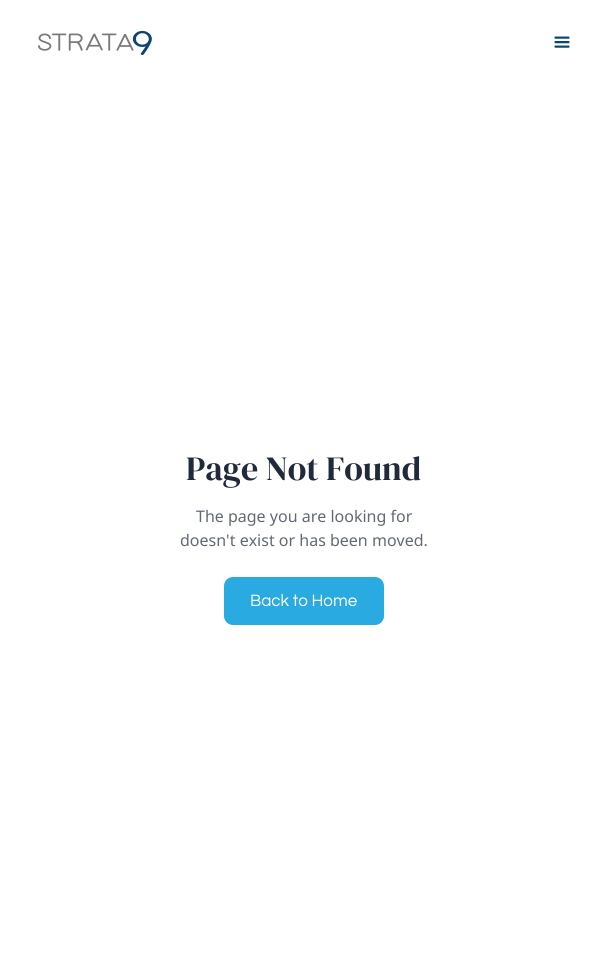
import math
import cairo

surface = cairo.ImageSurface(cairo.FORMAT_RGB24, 608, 978)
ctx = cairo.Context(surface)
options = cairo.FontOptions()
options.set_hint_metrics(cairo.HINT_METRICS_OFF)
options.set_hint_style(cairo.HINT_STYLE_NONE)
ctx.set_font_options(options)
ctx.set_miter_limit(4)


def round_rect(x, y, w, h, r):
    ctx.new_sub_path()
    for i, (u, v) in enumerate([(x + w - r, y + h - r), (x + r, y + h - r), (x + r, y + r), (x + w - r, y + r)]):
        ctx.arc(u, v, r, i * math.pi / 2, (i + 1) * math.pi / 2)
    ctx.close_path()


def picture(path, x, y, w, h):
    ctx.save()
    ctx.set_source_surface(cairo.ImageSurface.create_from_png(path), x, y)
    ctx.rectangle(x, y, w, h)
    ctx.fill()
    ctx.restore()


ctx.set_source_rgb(1, 1, 1)
ctx.paint()
picture("img1.png", 38, 30, 114, 25)
picture("img2.png", 554, 36, 16, 12)
ctx.select_font_face("DM Serif Display")
ctx.set_font_size(34)
ctx.set_source_rgb(0.125, 0.165, 0.231)
ctx.move_to(186, 480)
ctx.show_text("Page Not Found")
ctx.select_font_face("Noto Sans")
ctx.set_font_size(16)
ctx.set_source_rgb(0.384, 0.412, 0.459)
ctx.move_to(196, 522)
ctx.show_text("The page you are looking for")
ctx.move_to(180, 546)
ctx.show_text("doesn't exist or has been moved.")
ctx.set_source_rgb(0.161, 0.667, 0.882)
round_rect(224, 577, 160, 48, 9)
ctx.fill()
ctx.select_font_face("Questrial")
ctx.set_font_size(17)
ctx.set_source_rgb(1, 1, 1)
ctx.move_to(250, 606)
ctx.show_text("Back to Home")
surface.write_to_png("page.png")
